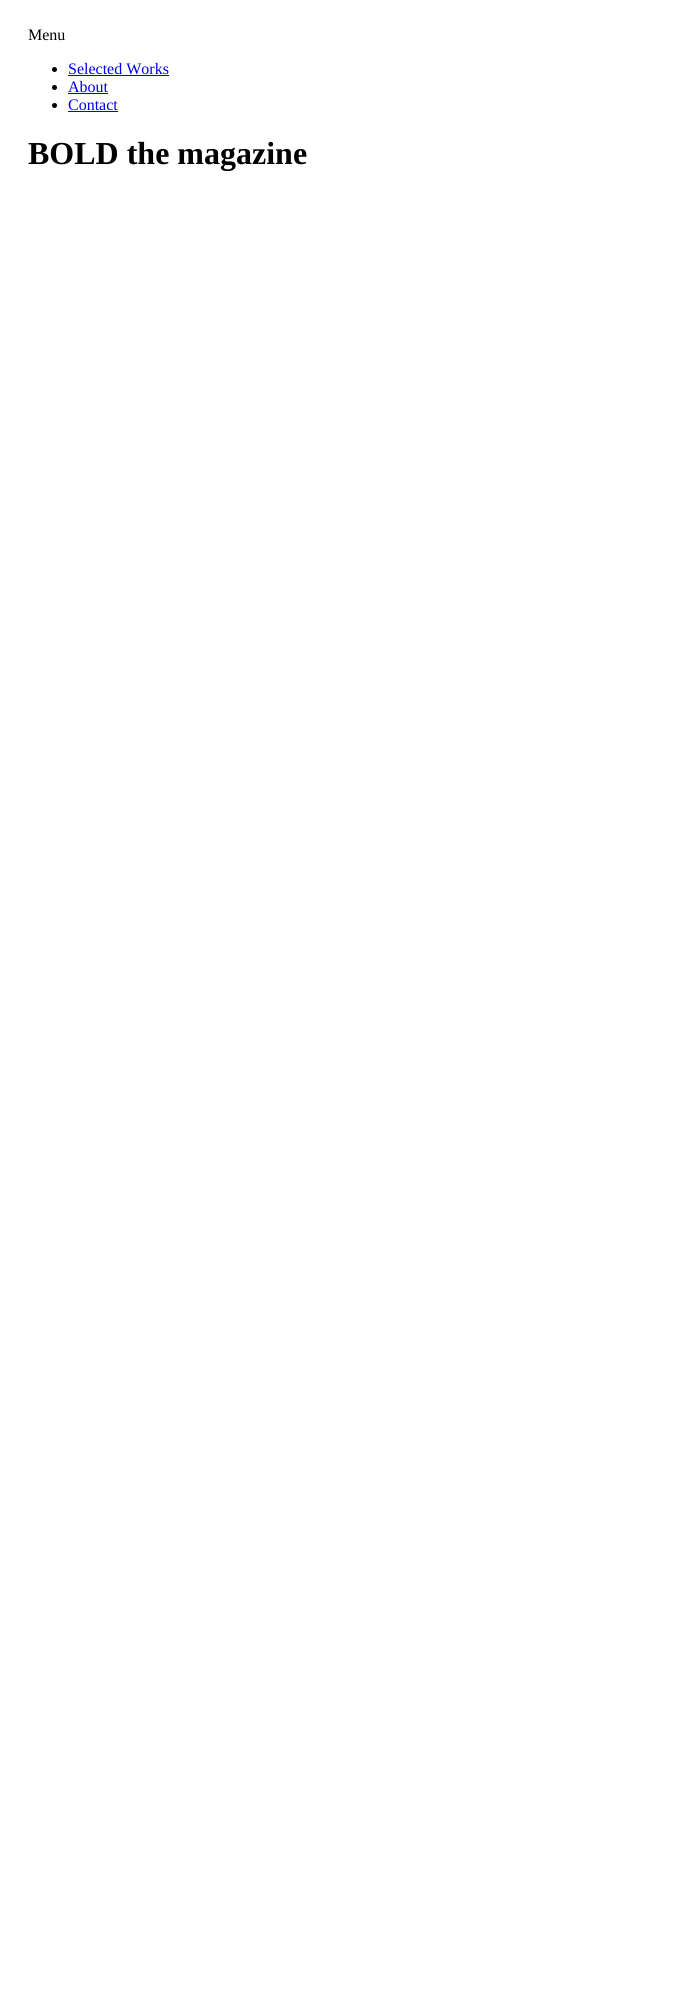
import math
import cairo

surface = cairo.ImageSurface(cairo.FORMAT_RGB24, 683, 2004)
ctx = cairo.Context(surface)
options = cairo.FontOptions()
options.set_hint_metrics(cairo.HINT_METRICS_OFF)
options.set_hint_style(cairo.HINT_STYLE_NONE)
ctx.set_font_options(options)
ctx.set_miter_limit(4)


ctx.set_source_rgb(1, 1, 1)
ctx.paint()
ctx.select_font_face("Liberation Serif")
ctx.set_font_size(16)
ctx.set_source_rgb(0, 0, 0)
ctx.move_to(28, 40)
ctx.show_text("Menu")
ctx.new_path()
ctx.arc(54.5, 69.5, 2.5, 0, 2 * math.pi)
ctx.fill()
ctx.set_source_rgb(0, 0, 0.933)
ctx.move_to(68, 74)
ctx.show_text("Selected Works")
ctx.rectangle(68, 75, 101, 1)
ctx.fill()
ctx.set_source_rgb(0, 0, 0)
ctx.arc(54.5, 87.5, 2.5, 0, 2 * math.pi)
ctx.fill()
ctx.set_source_rgb(0, 0, 0.933)
ctx.move_to(68, 92)
ctx.show_text("About")
ctx.rectangle(68, 93, 40, 1)
ctx.fill()
ctx.set_source_rgb(0, 0, 0)
ctx.arc(54.5, 105.5, 2.5, 0, 2 * math.pi)
ctx.fill()
ctx.set_source_rgb(0, 0, 0.933)
ctx.move_to(68, 110)
ctx.show_text("Contact")
ctx.rectangle(68, 111, 50, 1)
ctx.fill()
ctx.select_font_face("Liberation Serif", cairo.FONT_SLANT_NORMAL, cairo.FONT_WEIGHT_BOLD)
ctx.set_font_size(32)
ctx.set_source_rgb(0, 0, 0)
ctx.move_to(28, 164)
ctx.show_text("BOLD the magazine")
surface.write_to_png("page.png")
